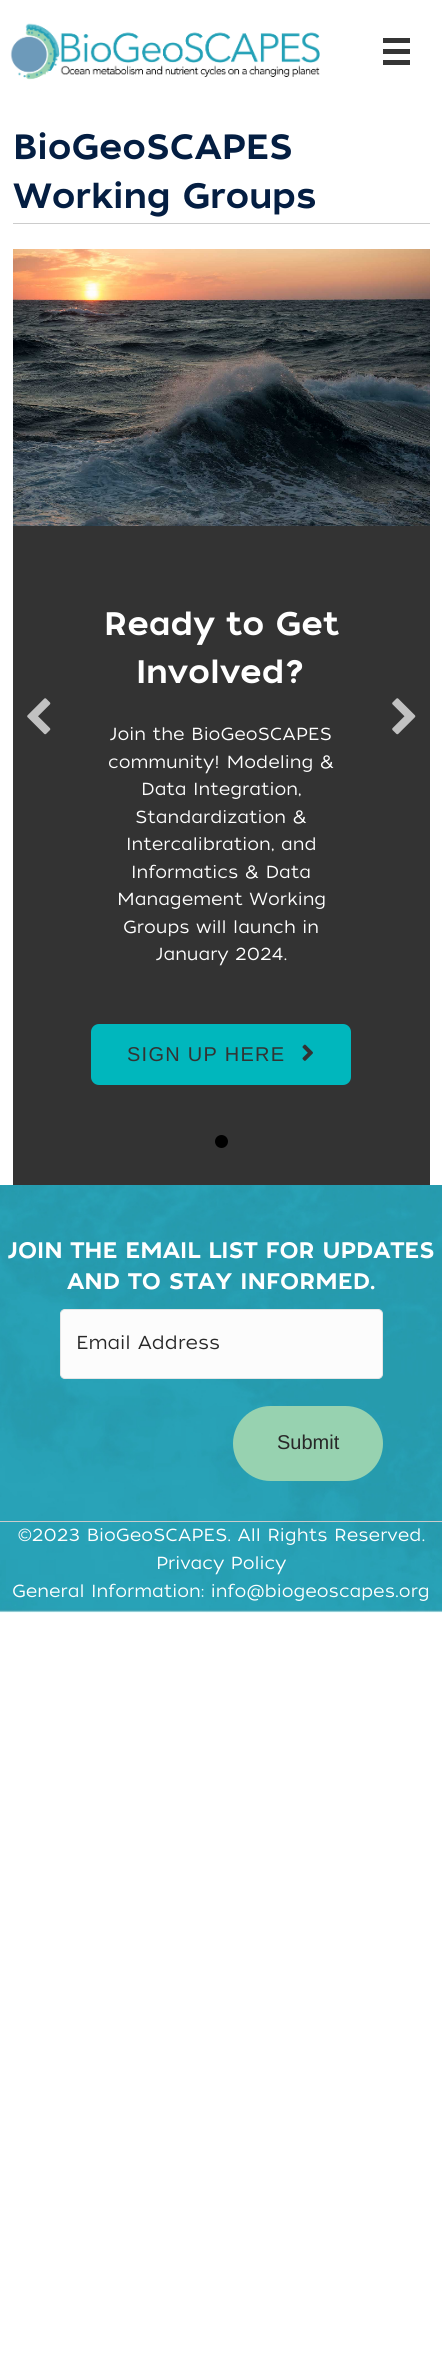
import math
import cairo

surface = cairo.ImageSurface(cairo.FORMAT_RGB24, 442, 2354)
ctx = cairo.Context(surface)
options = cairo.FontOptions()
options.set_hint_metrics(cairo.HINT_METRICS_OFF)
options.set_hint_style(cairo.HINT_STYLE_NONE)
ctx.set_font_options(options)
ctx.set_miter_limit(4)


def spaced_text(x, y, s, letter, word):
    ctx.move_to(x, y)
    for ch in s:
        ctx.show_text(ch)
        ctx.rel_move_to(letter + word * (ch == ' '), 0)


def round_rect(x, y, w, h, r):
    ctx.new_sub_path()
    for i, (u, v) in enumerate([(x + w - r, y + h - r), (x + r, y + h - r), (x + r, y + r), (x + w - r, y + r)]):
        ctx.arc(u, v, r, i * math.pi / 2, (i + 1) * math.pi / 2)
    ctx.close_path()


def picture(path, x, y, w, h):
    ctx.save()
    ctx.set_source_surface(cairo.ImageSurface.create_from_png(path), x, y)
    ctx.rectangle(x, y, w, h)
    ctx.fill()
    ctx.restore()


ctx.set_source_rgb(1, 1, 1)
ctx.paint()
picture("img1.png", 10, 23, 310, 57)
ctx.set_source_rgb(0.208, 0.208, 0.208)
ctx.rectangle(383, 38, 27, 5)
ctx.fill()
ctx.rectangle(383, 49, 27, 5)
ctx.fill()
ctx.rectangle(383, 60, 27, 5)
ctx.fill()
ctx.select_font_face("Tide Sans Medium")
ctx.set_font_size(35)
ctx.set_source_rgb(0.016, 0.118, 0.259)
ctx.move_to(13, 159)
ctx.show_text("BioGeoSCAPES")
ctx.move_to(13, 208)
ctx.show_text("Working Groups")
ctx.set_source_rgb(0.8, 0.8, 0.8)
ctx.rectangle(13, 223, 417, 1)
ctx.fill()
picture("img2.png", 13, 249, 417, 277)
ctx.set_source_rgb(0.2, 0.2, 0.2)
ctx.rectangle(13, 526, 417, 659)
ctx.fill()
ctx.set_font_size(32.5)
ctx.set_source_rgb(1, 1, 1)
ctx.move_to(104, 635)
ctx.show_text("Ready to Get")
ctx.move_to(136, 683)
ctx.show_text("Involved?")
ctx.select_font_face("Tide Sans Light")
ctx.set_font_size(17.5)
ctx.move_to(110, 740)
ctx.show_text("Join the BioGeoSCAPES")
ctx.move_to(108, 768)
ctx.show_text("community! Modeling &")
ctx.move_to(141, 795)
ctx.show_text("Data Integration,")
ctx.move_to(135, 823)
ctx.show_text("Standardization &")
ctx.move_to(126, 850)
ctx.show_text("Intercalibration, and")
ctx.move_to(131, 878)
ctx.show_text("Informatics & Data")
ctx.move_to(117, 905)
ctx.show_text("Management Working")
ctx.move_to(123, 933)
ctx.show_text("Groups will launch in")
ctx.move_to(156, 960)
ctx.show_text("January 2024.")
ctx.set_source_rgb(0, 0.718, 0.741)
round_rect(91, 1024, 260, 61, 8)
ctx.fill()
ctx.select_font_face("Liberation Sans")
ctx.set_font_size(20)
ctx.set_source_rgb(0.2, 0.2, 0.2)
spaced_text(127, 1061, "SIGN UP HERE", 1.25, 0)
picture("img3.png", 302, 1044, 11, 17)
ctx.set_source_rgb(0, 0, 0)
ctx.arc(221.5, 1141.5, 6.5, 0, 2 * math.pi)
ctx.fill()
picture("img4.png", 27, 698, 24, 37)
picture("img5.png", 392, 698, 24, 37)
picture("img6.png", 0, 1185, 442, 428)
ctx.select_font_face("Tide Sans Medium")
ctx.set_font_size(22.5)
ctx.set_source_rgb(1, 1, 1)
ctx.move_to(8, 1258)
ctx.show_text("JOIN THE EMAIL LIST FOR UPDATES")
ctx.move_to(67, 1289)
ctx.show_text("AND TO STAY INFORMED.")
ctx.set_source_rgb(0.988, 0.988, 0.988)
round_rect(60.5, 1309.5, 322, 69, 4.5)
ctx.fill_preserve()
ctx.set_source_rgb(0.902, 0.902, 0.902)
ctx.set_line_width(1)
ctx.stroke()
ctx.select_font_face("Tide Sans Light")
ctx.set_font_size(18.75)
ctx.set_source_rgb(0.157, 0.157, 0.157)
ctx.move_to(76, 1349)
ctx.show_text("Email Address")
ctx.set_source_rgb(0.592, 0.824, 0.69)
round_rect(233, 1406, 150, 75, 37.5)
ctx.fill()
ctx.select_font_face("Liberation Sans")
ctx.set_font_size(20)
ctx.set_source_rgb(0.157, 0.157, 0.157)
ctx.move_to(277, 1449)
ctx.show_text("Submit")
ctx.set_source_rgb(0.8, 0.8, 0.8)
ctx.rectangle(0, 1521, 442, 1)
ctx.fill()
ctx.select_font_face("Tide Sans Light")
ctx.set_font_size(17.5)
ctx.set_source_rgb(1, 1, 1)
ctx.move_to(18, 1541)
ctx.show_text("©2023 BioGeoSCAPES. All Rights Reserved.")
ctx.move_to(156, 1569)
ctx.show_text("Privacy Policy")
ctx.move_to(12, 1597)
ctx.show_text("General Information: info@biogeoscapes.org")
surface.write_to_png("page.png")
